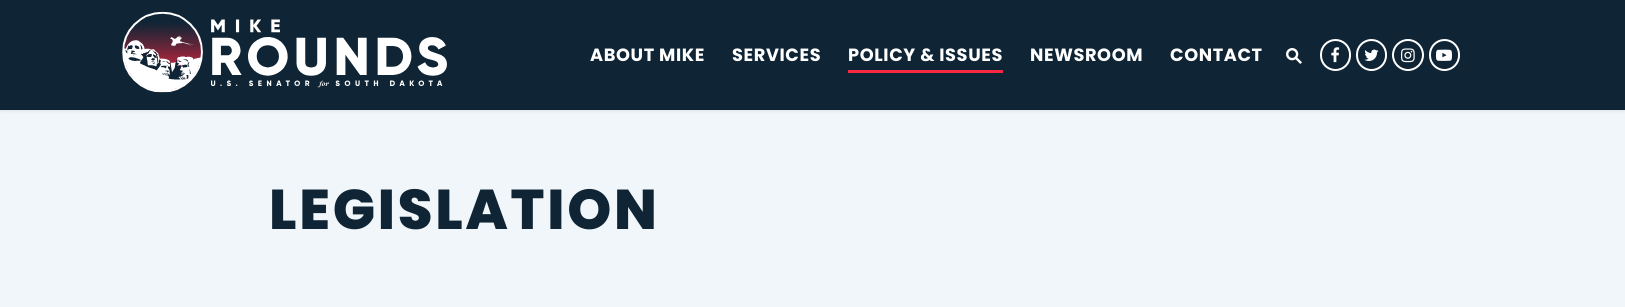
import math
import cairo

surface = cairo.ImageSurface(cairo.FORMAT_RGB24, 1625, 307)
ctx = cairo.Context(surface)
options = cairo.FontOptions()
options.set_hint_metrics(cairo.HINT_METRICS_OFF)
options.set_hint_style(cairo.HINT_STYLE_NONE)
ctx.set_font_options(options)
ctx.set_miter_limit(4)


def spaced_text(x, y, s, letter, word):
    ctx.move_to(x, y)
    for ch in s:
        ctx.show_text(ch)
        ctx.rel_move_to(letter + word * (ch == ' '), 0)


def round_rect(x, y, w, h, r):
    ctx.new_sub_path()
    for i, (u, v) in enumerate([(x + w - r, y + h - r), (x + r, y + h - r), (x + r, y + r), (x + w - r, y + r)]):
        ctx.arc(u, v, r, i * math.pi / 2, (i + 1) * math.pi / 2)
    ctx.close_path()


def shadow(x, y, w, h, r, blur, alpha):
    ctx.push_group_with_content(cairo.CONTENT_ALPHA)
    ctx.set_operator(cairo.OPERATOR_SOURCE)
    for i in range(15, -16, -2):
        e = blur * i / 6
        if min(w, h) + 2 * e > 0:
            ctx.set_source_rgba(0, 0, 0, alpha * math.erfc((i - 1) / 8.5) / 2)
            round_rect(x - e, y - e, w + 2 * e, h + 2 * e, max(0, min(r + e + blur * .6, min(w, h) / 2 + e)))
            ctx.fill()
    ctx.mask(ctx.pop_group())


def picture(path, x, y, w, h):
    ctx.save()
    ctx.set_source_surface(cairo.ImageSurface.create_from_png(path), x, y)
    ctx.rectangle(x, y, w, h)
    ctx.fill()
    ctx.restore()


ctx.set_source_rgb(0.941, 0.961, 0.976)
ctx.paint()
ctx.set_source_rgb(0, 0, 0)
shadow(0, 0, 1625, 110, 0, 2.5, 0.12)
ctx.set_source_rgb(0.059, 0.145, 0.208)
ctx.rectangle(0, 0, 1625, 110)
ctx.fill()
picture("img1.png", 122, 11, 325, 82)
ctx.select_font_face("Poppins", cairo.FONT_SLANT_NORMAL, cairo.FONT_WEIGHT_BOLD)
ctx.set_font_size(17.75)
ctx.set_source_rgb(1, 1, 1)
spaced_text(590, 61, "ABOUT MIKE", 0.6, 0)
spaced_text(732, 61, "SERVICES", 0.6, 0)
ctx.save()
ctx.rectangle(848, 46, 155, 27)
ctx.clip()
ctx.set_source_rgb(0.988, 0.153, 0.251)
ctx.set_fill_rule(cairo.FILL_RULE_EVEN_ODD)
ctx.new_path()
ctx.move_to(749, -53)
ctx.line_to(1102, -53)
ctx.line_to(1102, 172)
ctx.line_to(749, 172)
ctx.close_path()
ctx.move_to(848, 33)
ctx.line_to(1003, 33)
ctx.curve_to(1006, 33, 1008, 35, 1008, 38)
ctx.line_to(1008, 65)
ctx.curve_to(1008, 68, 1006, 70, 1003, 70)
ctx.line_to(848, 70)
ctx.curve_to(845, 70, 843, 68, 843, 65)
ctx.line_to(843, 38)
ctx.curve_to(843, 35, 845, 33, 848, 33)
ctx.close_path()
ctx.fill()
ctx.restore()
spaced_text(848, 61, "POLICY & ISSUES", 0.6, 0)
spaced_text(1030, 61, "NEWSROOM", 0.6, 0)
spaced_text(1170, 61, "CONTACT", 0.6, 0)
picture("img2.png", 1286, 48, 16, 16)
round_rect(1321, 40, 29, 30, 14.5)
ctx.stroke()
picture("img3.png", 1331, 47, 9, 16)
round_rect(1357, 40, 29, 30, 14.5)
ctx.stroke()
picture("img4.png", 1364, 49, 15, 12)
ctx.arc(1408, 55, 15, 0, 2 * math.pi)
ctx.stroke()
picture("img5.png", 1401, 48, 14, 15)
round_rect(1430, 40, 29, 30, 14.5)
ctx.stroke()
picture("img6.png", 1436, 49, 16, 12)
ctx.select_font_face("Poppins ExtraBold")
ctx.set_font_size(56)
ctx.set_source_rgb(0.059, 0.145, 0.208)
spaced_text(269, 229, "LEGISLATION", 2.75, 0)
surface.write_to_png("page.png")
